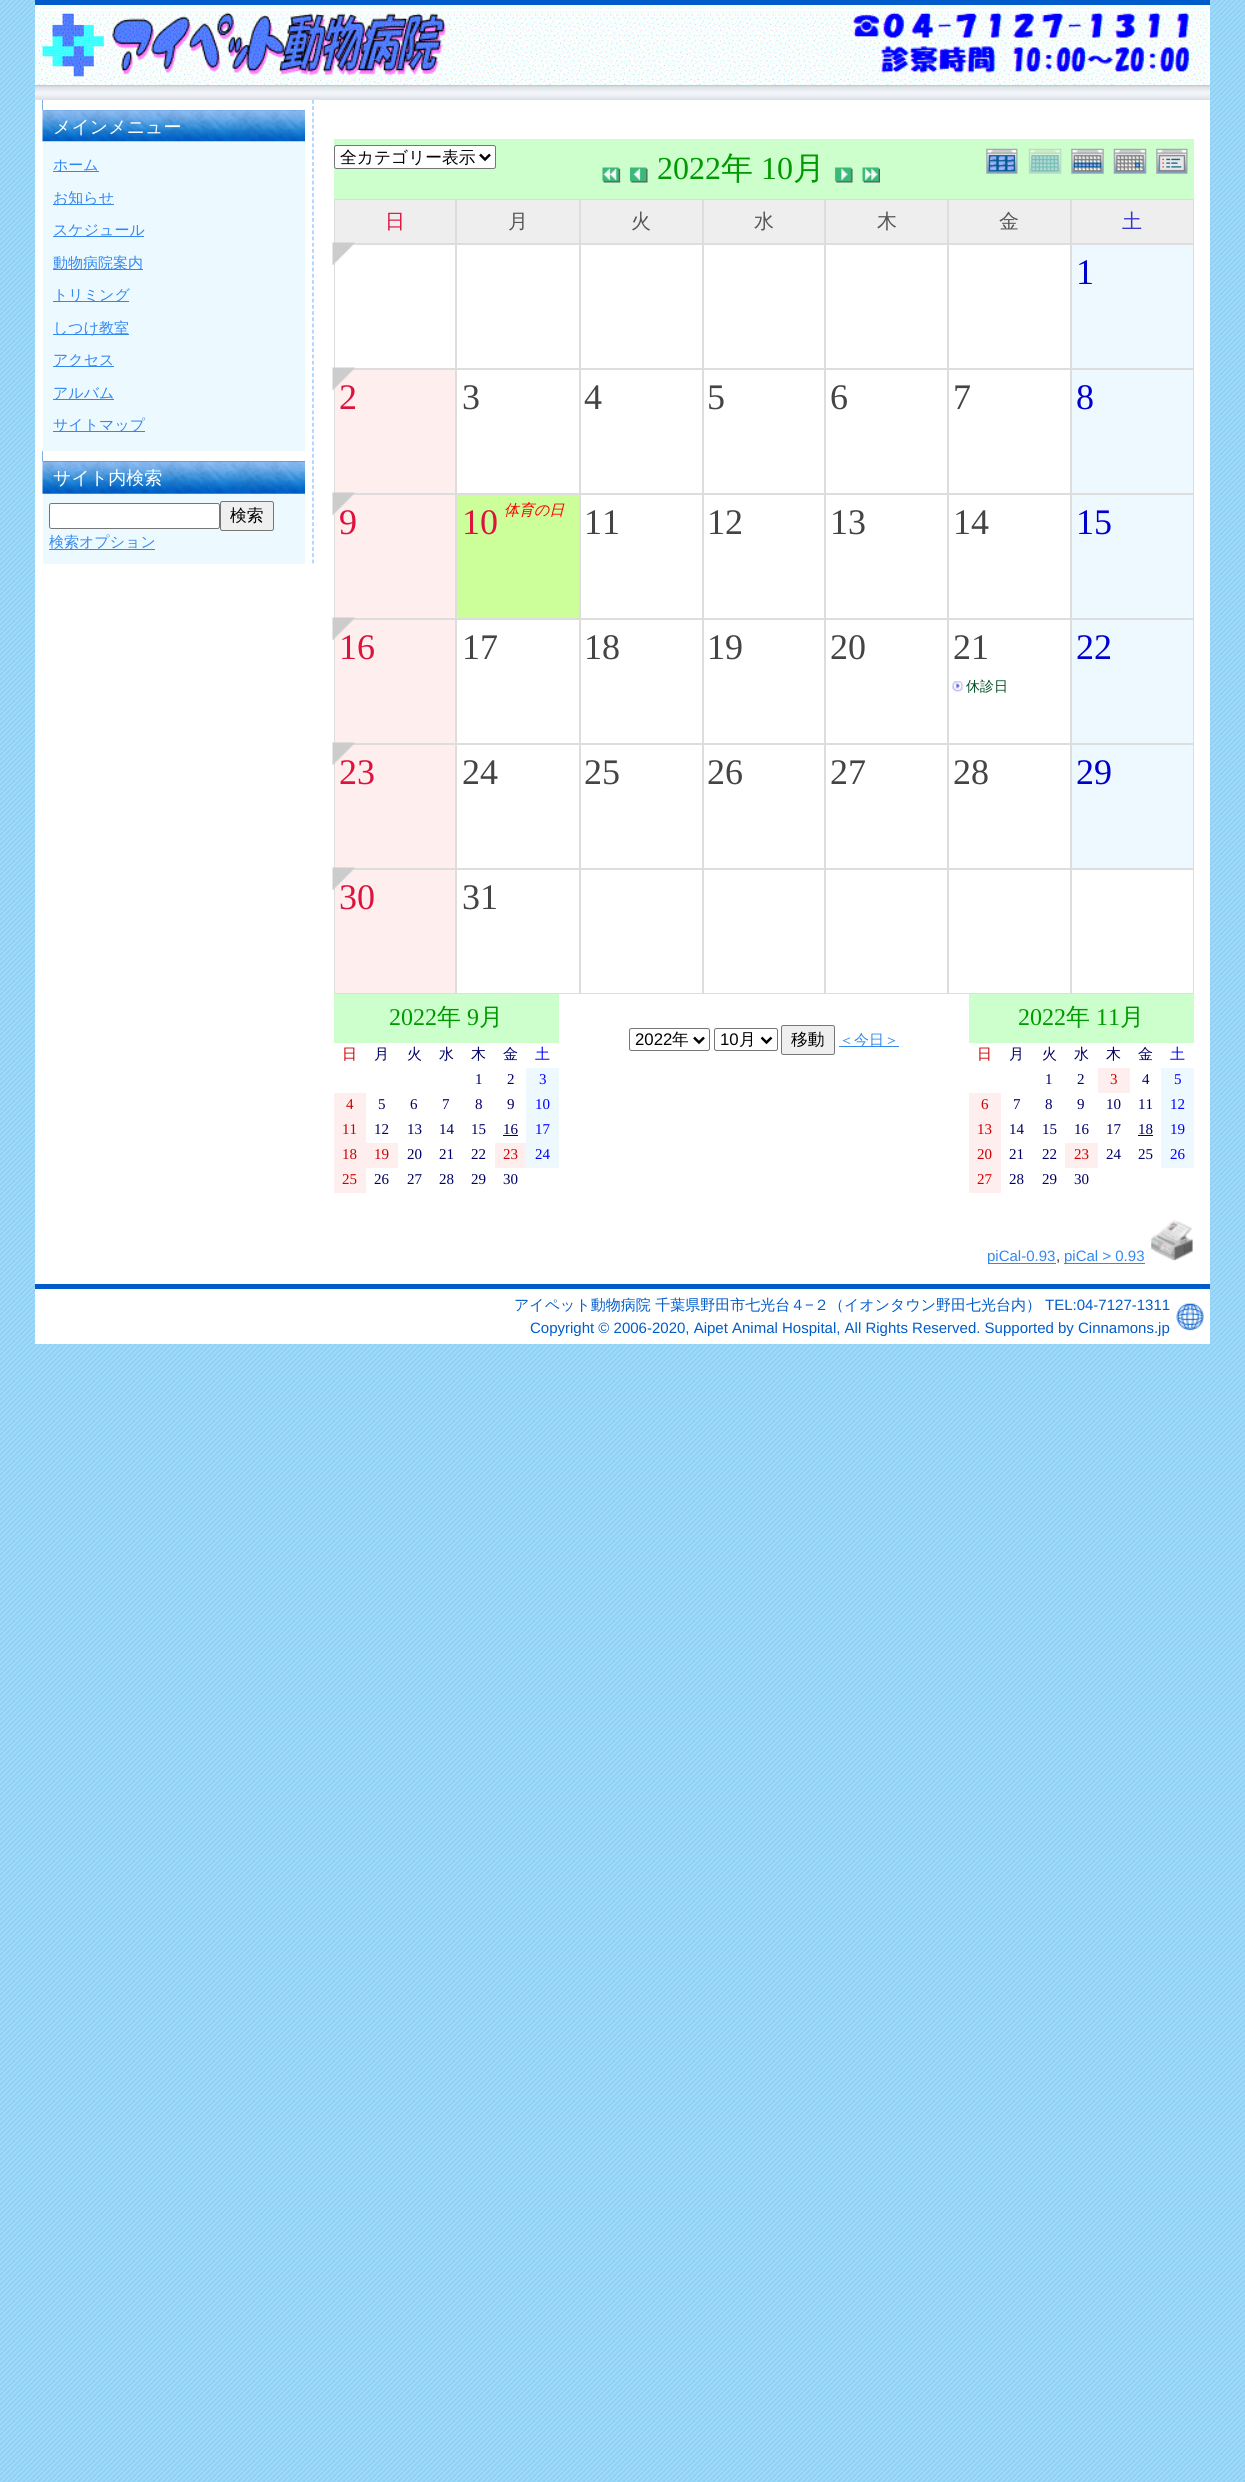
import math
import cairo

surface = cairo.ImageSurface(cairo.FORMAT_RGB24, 1245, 2482)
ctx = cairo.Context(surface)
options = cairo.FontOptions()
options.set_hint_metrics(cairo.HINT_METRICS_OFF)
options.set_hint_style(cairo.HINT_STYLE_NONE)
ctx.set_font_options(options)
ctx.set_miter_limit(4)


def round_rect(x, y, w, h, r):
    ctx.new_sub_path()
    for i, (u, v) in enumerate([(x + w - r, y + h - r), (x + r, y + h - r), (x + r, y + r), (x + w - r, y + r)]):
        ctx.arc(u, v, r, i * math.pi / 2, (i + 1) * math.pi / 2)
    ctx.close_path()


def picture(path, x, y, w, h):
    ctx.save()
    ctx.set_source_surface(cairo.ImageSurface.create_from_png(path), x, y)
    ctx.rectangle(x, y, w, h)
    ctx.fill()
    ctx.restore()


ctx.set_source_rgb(1, 1, 1)
ctx.paint()
picture("img1.png", 0, 0, 1245, 2482)
ctx.set_source_rgb(1, 1, 1)
ctx.rectangle(35, 5, 1175, 1339)
ctx.fill()
ctx.set_source_rgb(0, 0.361, 0.792)
ctx.rectangle(35, 0, 1175, 5)
ctx.fill()
picture("img2.png", 36, 7, 1174, 78)
picture("img3.png", 35, 85, 1175, 15)
ctx.new_path()
ctx.move_to(313, 100)
ctx.line_to(313, 564)
ctx.set_source_rgb(0.506, 0.729, 1)
ctx.set_line_width(1.2)
ctx.set_dash([3.75, 2.46])
ctx.stroke()
ctx.set_source_rgb(0.925, 0.973, 1)
ctx.rectangle(43, 141, 262, 310)
ctx.fill()
picture("img4.png", 42, 100, 263, 42)
ctx.set_source_rgb(1, 1, 1)
ctx.rectangle(43, 100, 262, 10)
ctx.fill()
ctx.select_font_face("WenQuanYi Zen Hei Medium")
ctx.set_font_size(18)
ctx.move_to(53, 133)
ctx.show_text("メインメニュー")
ctx.set_source_rgb(0.2, 0.533, 0.933)
ctx.rectangle(53, 171, 46, 1)
ctx.fill()
ctx.set_font_size(15)
ctx.move_to(53, 170)
ctx.show_text("ホーム")
ctx.rectangle(53, 204, 61, 1)
ctx.fill()
ctx.move_to(53, 203)
ctx.show_text("お知らせ")
ctx.rectangle(53, 236, 91, 1)
ctx.fill()
ctx.move_to(53, 235)
ctx.show_text("スケジュール")
ctx.rectangle(53, 269, 90, 1)
ctx.fill()
ctx.move_to(53, 268)
ctx.show_text("動物病院案内")
ctx.rectangle(53, 301, 76, 1)
ctx.fill()
ctx.move_to(53, 300)
ctx.show_text("トリミング")
ctx.rectangle(53, 334, 76, 1)
ctx.fill()
ctx.move_to(53, 333)
ctx.show_text("しつけ教室")
ctx.rectangle(53, 366, 61, 1)
ctx.fill()
ctx.move_to(53, 365)
ctx.show_text("アクセス")
ctx.rectangle(53, 399, 61, 1)
ctx.fill()
ctx.move_to(53, 398)
ctx.show_text("アルバム")
ctx.rectangle(53, 431, 92, 1)
ctx.fill()
ctx.move_to(53, 430)
ctx.show_text("サイトマップ")
ctx.set_source_rgb(0.925, 0.973, 1)
ctx.rectangle(43, 493, 262, 71)
ctx.fill()
picture("img5.png", 42, 451, 263, 43)
ctx.set_source_rgb(1, 1, 1)
ctx.rectangle(43, 451, 262, 10)
ctx.fill()
ctx.set_font_size(18)
ctx.move_to(53, 484)
ctx.show_text("サイト内検索")
round_rect(49.5, 503.5, 170, 25, 2)
ctx.fill_preserve()
ctx.set_source_rgb(0.463, 0.463, 0.463)
ctx.set_line_width(1)
ctx.set_dash([])
ctx.stroke()
ctx.set_source_rgb(0.937, 0.937, 0.937)
round_rect(220.5, 501.5, 53, 29, 2)
ctx.fill_preserve()
ctx.set_source_rgb(0.463, 0.463, 0.463)
ctx.stroke()
ctx.set_font_size(16.75)
ctx.set_source_rgb(0, 0, 0)
ctx.move_to(230, 521)
ctx.show_text("検索")
ctx.set_source_rgb(0.2, 0.533, 0.933)
ctx.rectangle(49, 549, 106, 1)
ctx.fill()
ctx.set_font_size(15)
ctx.move_to(49, 547)
ctx.show_text("検索オプション")
ctx.set_source_rgb(0.8, 1, 0.8)
ctx.rectangle(334, 139, 860, 60)
ctx.fill()
ctx.set_source_rgb(1, 1, 1)
round_rect(334.5, 145.5, 161, 23, 2)
ctx.fill_preserve()
ctx.set_source_rgb(0.463, 0.463, 0.463)
ctx.stroke()
ctx.new_path()
ctx.move_to(480, 154.5)
ctx.line_to(485, 159.5)
ctx.line_to(490, 154.5)
ctx.set_source_rgb(0, 0, 0)
ctx.set_line_width(2.5)
ctx.stroke()
ctx.set_font_size(16.75)
ctx.move_to(340, 163)
ctx.show_text("全カテゴリー表示")
picture("img6.png", 602, 167, 19, 16)
picture("img7.png", 630, 167, 18, 16)
ctx.select_font_face("Liberation Serif")
ctx.set_font_size(32)
ctx.set_source_rgb(0, 0.6, 0)
ctx.move_to(657, 179)
ctx.show_text("2022")
ctx.select_font_face("WenQuanYi Zen Hei Medium")
ctx.move_to(721, 179)
ctx.show_text("年")
ctx.select_font_face("Liberation Serif")
ctx.move_to(761, 179)
ctx.show_text("10")
ctx.select_font_face("WenQuanYi Zen Hei Medium")
ctx.move_to(793, 179)
ctx.show_text("月")
picture("img8.png", 834, 167, 19, 16)
picture("img9.png", 862, 167, 18, 16)
picture("img10.png", 986, 148, 32, 26)
picture("img11.png", 1028, 148, 34, 26)
picture("img12.png", 1071, 148, 33, 26)
picture("img13.png", 1113, 148, 34, 26)
picture("img14.png", 1156, 148, 32, 26)
ctx.set_source_rgb(0.933, 0.933, 0.933)
ctx.rectangle(334.5, 199.5, 121, 44)
ctx.fill_preserve()
ctx.set_source_rgb(0.867, 0.867, 0.867)
ctx.set_line_width(1)
ctx.stroke()
ctx.set_font_size(20)
ctx.set_source_rgb(0.863, 0.078, 0.235)
ctx.move_to(385, 228)
ctx.show_text("日")
ctx.set_source_rgb(0.933, 0.933, 0.933)
ctx.rectangle(456.5, 199.5, 123, 44)
ctx.fill_preserve()
ctx.set_source_rgb(0.867, 0.867, 0.867)
ctx.stroke()
ctx.set_source_rgb(0.333, 0.333, 0.333)
ctx.move_to(508, 228)
ctx.show_text("月")
ctx.set_source_rgb(0.933, 0.933, 0.933)
ctx.rectangle(580.5, 199.5, 122, 44)
ctx.fill_preserve()
ctx.set_source_rgb(0.867, 0.867, 0.867)
ctx.stroke()
ctx.set_source_rgb(0.333, 0.333, 0.333)
ctx.move_to(631, 228)
ctx.show_text("火")
ctx.set_source_rgb(0.933, 0.933, 0.933)
ctx.rectangle(703.5, 199.5, 121, 44)
ctx.fill_preserve()
ctx.set_source_rgb(0.867, 0.867, 0.867)
ctx.stroke()
ctx.set_source_rgb(0.333, 0.333, 0.333)
ctx.move_to(754, 228)
ctx.show_text("水")
ctx.set_source_rgb(0.933, 0.933, 0.933)
ctx.rectangle(825.5, 199.5, 122, 44)
ctx.fill_preserve()
ctx.set_source_rgb(0.867, 0.867, 0.867)
ctx.stroke()
ctx.set_source_rgb(0.333, 0.333, 0.333)
ctx.move_to(877, 228)
ctx.show_text("木")
ctx.set_source_rgb(0.933, 0.933, 0.933)
ctx.rectangle(948.5, 199.5, 122, 44)
ctx.fill_preserve()
ctx.set_source_rgb(0.867, 0.867, 0.867)
ctx.stroke()
ctx.set_source_rgb(0.333, 0.333, 0.333)
ctx.move_to(999, 228)
ctx.show_text("金")
ctx.set_source_rgb(0.933, 0.933, 0.933)
ctx.rectangle(1071.5, 199.5, 122, 44)
ctx.fill_preserve()
ctx.set_source_rgb(0.867, 0.867, 0.867)
ctx.stroke()
ctx.set_source_rgb(0.2, 0.2, 0.804)
ctx.move_to(1122, 228)
ctx.show_text("土")
ctx.rectangle(334.5, 244.5, 121, 124)
ctx.set_source_rgb(0.867, 0.867, 0.867)
ctx.stroke()
picture("img15.png", 332, 242, 23, 23)
ctx.rectangle(456.5, 244.5, 123, 124)
ctx.stroke()
ctx.rectangle(580.5, 244.5, 122, 124)
ctx.stroke()
ctx.rectangle(703.5, 244.5, 121, 124)
ctx.stroke()
ctx.rectangle(825.5, 244.5, 122, 124)
ctx.stroke()
ctx.rectangle(948.5, 244.5, 122, 124)
ctx.stroke()
ctx.set_source_rgb(0.933, 0.969, 1)
ctx.rectangle(1071.5, 244.5, 122, 124)
ctx.fill_preserve()
ctx.set_source_rgb(0.867, 0.867, 0.867)
ctx.stroke()
ctx.select_font_face("Liberation Serif")
ctx.set_font_size(36)
ctx.set_source_rgb(0, 0, 0.804)
ctx.move_to(1076, 284)
ctx.show_text("1")
ctx.set_source_rgb(1, 0.933, 0.933)
ctx.rectangle(334.5, 369.5, 121, 124)
ctx.fill_preserve()
ctx.set_source_rgb(0.867, 0.867, 0.867)
ctx.stroke()
picture("img16.png", 332, 367, 23, 23)
ctx.set_source_rgb(0.863, 0.078, 0.235)
ctx.move_to(339, 409)
ctx.show_text("2")
ctx.rectangle(456.5, 369.5, 123, 124)
ctx.set_source_rgb(0.867, 0.867, 0.867)
ctx.stroke()
ctx.set_source_rgb(0.267, 0.267, 0.267)
ctx.move_to(462, 409)
ctx.show_text("3")
ctx.rectangle(580.5, 369.5, 122, 124)
ctx.set_source_rgb(0.867, 0.867, 0.867)
ctx.stroke()
ctx.set_source_rgb(0.267, 0.267, 0.267)
ctx.move_to(584, 409)
ctx.show_text("4")
ctx.rectangle(703.5, 369.5, 121, 124)
ctx.set_source_rgb(0.867, 0.867, 0.867)
ctx.stroke()
ctx.set_source_rgb(0.267, 0.267, 0.267)
ctx.move_to(707, 409)
ctx.show_text("5")
ctx.rectangle(825.5, 369.5, 122, 124)
ctx.set_source_rgb(0.867, 0.867, 0.867)
ctx.stroke()
ctx.set_source_rgb(0.267, 0.267, 0.267)
ctx.move_to(830, 409)
ctx.show_text("6")
ctx.rectangle(948.5, 369.5, 122, 124)
ctx.set_source_rgb(0.867, 0.867, 0.867)
ctx.stroke()
ctx.set_source_rgb(0.267, 0.267, 0.267)
ctx.move_to(953, 409)
ctx.show_text("7")
ctx.set_source_rgb(0.933, 0.969, 1)
ctx.rectangle(1071.5, 369.5, 122, 124)
ctx.fill_preserve()
ctx.set_source_rgb(0.867, 0.867, 0.867)
ctx.stroke()
ctx.set_source_rgb(0, 0, 0.804)
ctx.move_to(1076, 409)
ctx.show_text("8")
ctx.set_source_rgb(1, 0.933, 0.933)
ctx.rectangle(334.5, 494.5, 121, 124)
ctx.fill_preserve()
ctx.set_source_rgb(0.867, 0.867, 0.867)
ctx.stroke()
picture("img17.png", 332, 492, 23, 23)
ctx.set_source_rgb(0.863, 0.078, 0.235)
ctx.move_to(339, 534)
ctx.show_text("9")
ctx.set_source_rgb(0.8, 1, 0.6)
ctx.rectangle(456.5, 494.5, 123, 124)
ctx.fill_preserve()
ctx.set_source_rgb(0.867, 0.867, 0.867)
ctx.stroke()
ctx.set_source_rgb(0.863, 0.078, 0.235)
ctx.move_to(462, 534)
ctx.show_text("10")
ctx.select_font_face("WenQuanYi Zen Hei Medium", cairo.FONT_SLANT_ITALIC)
ctx.set_font_size(15)
ctx.set_source_rgb(1, 0, 0)
ctx.move_to(504, 515)
ctx.show_text("体育の日")
ctx.rectangle(580.5, 494.5, 122, 124)
ctx.set_source_rgb(0.867, 0.867, 0.867)
ctx.stroke()
ctx.select_font_face("Liberation Serif")
ctx.set_font_size(36)
ctx.set_source_rgb(0.267, 0.267, 0.267)
ctx.move_to(584, 534)
ctx.show_text("11")
ctx.rectangle(703.5, 494.5, 121, 124)
ctx.set_source_rgb(0.867, 0.867, 0.867)
ctx.stroke()
ctx.set_source_rgb(0.267, 0.267, 0.267)
ctx.move_to(707, 534)
ctx.show_text("12")
ctx.rectangle(825.5, 494.5, 122, 124)
ctx.set_source_rgb(0.867, 0.867, 0.867)
ctx.stroke()
ctx.set_source_rgb(0.267, 0.267, 0.267)
ctx.move_to(830, 534)
ctx.show_text("13")
ctx.rectangle(948.5, 494.5, 122, 124)
ctx.set_source_rgb(0.867, 0.867, 0.867)
ctx.stroke()
ctx.set_source_rgb(0.267, 0.267, 0.267)
ctx.move_to(953, 534)
ctx.show_text("14")
ctx.set_source_rgb(0.933, 0.969, 1)
ctx.rectangle(1071.5, 494.5, 122, 124)
ctx.fill_preserve()
ctx.set_source_rgb(0.867, 0.867, 0.867)
ctx.stroke()
ctx.set_source_rgb(0, 0, 0.804)
ctx.move_to(1076, 534)
ctx.show_text("15")
ctx.set_source_rgb(1, 0.933, 0.933)
ctx.rectangle(334.5, 619.5, 121, 124)
ctx.fill_preserve()
ctx.set_source_rgb(0.867, 0.867, 0.867)
ctx.stroke()
picture("img17.png", 332, 617, 23, 23)
ctx.set_source_rgb(0.863, 0.078, 0.235)
ctx.move_to(339, 659)
ctx.show_text("16")
ctx.rectangle(456.5, 619.5, 123, 124)
ctx.set_source_rgb(0.867, 0.867, 0.867)
ctx.stroke()
ctx.set_source_rgb(0.267, 0.267, 0.267)
ctx.move_to(462, 659)
ctx.show_text("17")
ctx.rectangle(580.5, 619.5, 122, 124)
ctx.set_source_rgb(0.867, 0.867, 0.867)
ctx.stroke()
ctx.set_source_rgb(0.267, 0.267, 0.267)
ctx.move_to(584, 659)
ctx.show_text("18")
ctx.rectangle(703.5, 619.5, 121, 124)
ctx.set_source_rgb(0.867, 0.867, 0.867)
ctx.stroke()
ctx.set_source_rgb(0.267, 0.267, 0.267)
ctx.move_to(707, 659)
ctx.show_text("19")
ctx.rectangle(825.5, 619.5, 122, 124)
ctx.set_source_rgb(0.867, 0.867, 0.867)
ctx.stroke()
ctx.set_source_rgb(0.267, 0.267, 0.267)
ctx.move_to(830, 659)
ctx.show_text("20")
ctx.rectangle(948.5, 619.5, 122, 124)
ctx.set_source_rgb(0.867, 0.867, 0.867)
ctx.stroke()
ctx.set_source_rgb(0.267, 0.267, 0.267)
ctx.move_to(953, 659)
ctx.show_text("21")
picture("img18.png", 952, 681, 11, 11)
ctx.select_font_face("WenQuanYi Zen Hei Medium")
ctx.set_font_size(14)
ctx.set_source_rgb(0, 0.302, 0.145)
ctx.move_to(966, 691)
ctx.show_text("休診日")
ctx.set_source_rgb(0.933, 0.969, 1)
ctx.rectangle(1071.5, 619.5, 122, 124)
ctx.fill_preserve()
ctx.set_source_rgb(0.867, 0.867, 0.867)
ctx.stroke()
ctx.select_font_face("Liberation Serif")
ctx.set_font_size(36)
ctx.set_source_rgb(0, 0, 0.804)
ctx.move_to(1076, 659)
ctx.show_text("22")
ctx.set_source_rgb(1, 0.933, 0.933)
ctx.rectangle(334.5, 744.5, 121, 124)
ctx.fill_preserve()
ctx.set_source_rgb(0.867, 0.867, 0.867)
ctx.stroke()
picture("img17.png", 332, 742, 23, 23)
ctx.set_source_rgb(0.863, 0.078, 0.235)
ctx.move_to(339, 784)
ctx.show_text("23")
ctx.rectangle(456.5, 744.5, 123, 124)
ctx.set_source_rgb(0.867, 0.867, 0.867)
ctx.stroke()
ctx.set_source_rgb(0.267, 0.267, 0.267)
ctx.move_to(462, 784)
ctx.show_text("24")
ctx.rectangle(580.5, 744.5, 122, 124)
ctx.set_source_rgb(0.867, 0.867, 0.867)
ctx.stroke()
ctx.set_source_rgb(0.267, 0.267, 0.267)
ctx.move_to(584, 784)
ctx.show_text("25")
ctx.rectangle(703.5, 744.5, 121, 124)
ctx.set_source_rgb(0.867, 0.867, 0.867)
ctx.stroke()
ctx.set_source_rgb(0.267, 0.267, 0.267)
ctx.move_to(707, 784)
ctx.show_text("26")
ctx.rectangle(825.5, 744.5, 122, 124)
ctx.set_source_rgb(0.867, 0.867, 0.867)
ctx.stroke()
ctx.set_source_rgb(0.267, 0.267, 0.267)
ctx.move_to(830, 784)
ctx.show_text("27")
ctx.rectangle(948.5, 744.5, 122, 124)
ctx.set_source_rgb(0.867, 0.867, 0.867)
ctx.stroke()
ctx.set_source_rgb(0.267, 0.267, 0.267)
ctx.move_to(953, 784)
ctx.show_text("28")
ctx.set_source_rgb(0.933, 0.969, 1)
ctx.rectangle(1071.5, 744.5, 122, 124)
ctx.fill_preserve()
ctx.set_source_rgb(0.867, 0.867, 0.867)
ctx.stroke()
ctx.set_source_rgb(0, 0, 0.804)
ctx.move_to(1076, 784)
ctx.show_text("29")
ctx.set_source_rgb(1, 0.933, 0.933)
ctx.rectangle(334.5, 869.5, 121, 124)
ctx.fill_preserve()
ctx.set_source_rgb(0.867, 0.867, 0.867)
ctx.stroke()
picture("img17.png", 332, 867, 23, 23)
ctx.set_source_rgb(0.863, 0.078, 0.235)
ctx.move_to(339, 909)
ctx.show_text("30")
ctx.rectangle(456.5, 869.5, 123, 124)
ctx.set_source_rgb(0.867, 0.867, 0.867)
ctx.stroke()
ctx.set_source_rgb(0.267, 0.267, 0.267)
ctx.move_to(462, 909)
ctx.show_text("31")
ctx.rectangle(580.5, 869.5, 122, 124)
ctx.set_source_rgb(0.867, 0.867, 0.867)
ctx.stroke()
ctx.rectangle(703.5, 869.5, 121, 124)
ctx.stroke()
ctx.rectangle(825.5, 869.5, 122, 124)
ctx.stroke()
ctx.rectangle(948.5, 869.5, 122, 124)
ctx.stroke()
ctx.rectangle(1071.5, 869.5, 122, 124)
ctx.stroke()
ctx.set_source_rgb(0.8, 1, 0.8)
ctx.rectangle(334, 994, 225, 49)
ctx.fill()
ctx.set_font_size(24)
ctx.set_source_rgb(0, 0.6, 0)
ctx.move_to(389, 1025)
ctx.show_text("2022")
ctx.select_font_face("WenQuanYi Zen Hei Medium")
ctx.move_to(437, 1025)
ctx.show_text("年")
ctx.select_font_face("Liberation Serif")
ctx.move_to(467, 1025)
ctx.show_text("9")
ctx.select_font_face("WenQuanYi Zen Hei Medium")
ctx.move_to(479, 1025)
ctx.show_text("月")
ctx.set_font_size(15)
ctx.set_source_rgb(0.8, 0, 0)
ctx.move_to(342, 1059)
ctx.show_text("日")
ctx.set_source_rgb(0, 0, 0.4)
ctx.move_to(374, 1059)
ctx.show_text("月")
ctx.move_to(407, 1059)
ctx.show_text("火")
ctx.move_to(439, 1059)
ctx.show_text("水")
ctx.move_to(471, 1059)
ctx.show_text("木")
ctx.move_to(503, 1059)
ctx.show_text("金")
ctx.set_source_rgb(0, 0, 1)
ctx.move_to(535, 1059)
ctx.show_text("土")
ctx.select_font_face("Liberation Serif")
ctx.set_source_rgb(0, 0, 0.4)
ctx.move_to(475, 1084)
ctx.show_text("1")
ctx.move_to(507, 1084)
ctx.show_text("2")
ctx.set_source_rgb(0.933, 0.969, 1)
ctx.rectangle(526, 1068, 33, 100)
ctx.fill()
ctx.set_source_rgb(0, 0, 1)
ctx.move_to(539, 1084)
ctx.show_text("3")
ctx.set_source_rgb(1, 0.933, 0.933)
ctx.rectangle(334, 1093, 32, 100)
ctx.fill()
ctx.set_source_rgb(0.8, 0, 0)
ctx.move_to(346, 1109)
ctx.show_text("4")
ctx.set_source_rgb(0, 0, 0.4)
ctx.move_to(378, 1109)
ctx.show_text("5")
ctx.move_to(410, 1109)
ctx.show_text("6")
ctx.move_to(442, 1109)
ctx.show_text("7")
ctx.move_to(475, 1109)
ctx.show_text("8")
ctx.move_to(507, 1109)
ctx.show_text("9")
ctx.set_source_rgb(0, 0, 1)
ctx.move_to(535, 1109)
ctx.show_text("10")
ctx.set_source_rgb(0.8, 0, 0)
ctx.move_to(342, 1134)
ctx.show_text("11")
ctx.set_source_rgb(0, 0, 0.4)
ctx.move_to(374, 1134)
ctx.show_text("12")
ctx.move_to(407, 1134)
ctx.show_text("13")
ctx.move_to(439, 1134)
ctx.show_text("14")
ctx.move_to(471, 1134)
ctx.show_text("15")
ctx.move_to(503, 1134)
ctx.show_text("16")
ctx.rectangle(503, 1135, 15, 1)
ctx.fill()
ctx.set_source_rgb(0, 0, 1)
ctx.move_to(535, 1134)
ctx.show_text("17")
ctx.set_source_rgb(0.8, 0, 0)
ctx.move_to(342, 1159)
ctx.show_text("18")
ctx.set_source_rgb(1, 0.933, 0.933)
ctx.rectangle(366, 1143, 32, 25)
ctx.fill()
ctx.set_source_rgb(0.8, 0, 0)
ctx.move_to(374, 1159)
ctx.show_text("19")
ctx.set_source_rgb(0, 0, 0.4)
ctx.move_to(407, 1159)
ctx.show_text("20")
ctx.move_to(439, 1159)
ctx.show_text("21")
ctx.move_to(471, 1159)
ctx.show_text("22")
ctx.set_source_rgb(1, 0.933, 0.933)
ctx.rectangle(495, 1143, 31, 25)
ctx.fill()
ctx.set_source_rgb(0.8, 0, 0)
ctx.move_to(503, 1159)
ctx.show_text("23")
ctx.set_source_rgb(0, 0, 1)
ctx.move_to(535, 1159)
ctx.show_text("24")
ctx.set_source_rgb(0.8, 0, 0)
ctx.move_to(342, 1184)
ctx.show_text("25")
ctx.set_source_rgb(0, 0, 0.4)
ctx.move_to(374, 1184)
ctx.show_text("26")
ctx.move_to(407, 1184)
ctx.show_text("27")
ctx.move_to(439, 1184)
ctx.show_text("28")
ctx.move_to(471, 1184)
ctx.show_text("29")
ctx.move_to(503, 1184)
ctx.show_text("30")
round_rect(629.5, 1028.5, 80, 22, 2)
ctx.set_source_rgb(0.463, 0.463, 0.463)
ctx.stroke()
ctx.new_path()
ctx.move_to(694, 1037.5)
ctx.line_to(699, 1042.5)
ctx.line_to(704, 1037.5)
ctx.set_source_rgb(0, 0, 0)
ctx.set_line_width(2.5)
ctx.stroke()
ctx.select_font_face("Liberation Sans")
ctx.set_font_size(16.75)
ctx.move_to(635, 1045)
ctx.show_text("2022")
ctx.select_font_face("WenQuanYi Zen Hei Medium")
ctx.move_to(672, 1045)
ctx.show_text("年")
round_rect(714.5, 1028.5, 63, 22, 2)
ctx.set_source_rgb(0.463, 0.463, 0.463)
ctx.set_line_width(1)
ctx.stroke()
ctx.new_path()
ctx.move_to(761.5, 1037.5)
ctx.line_to(766.5, 1042.5)
ctx.line_to(771.5, 1037.5)
ctx.set_source_rgb(0, 0, 0)
ctx.set_line_width(2.5)
ctx.stroke()
ctx.select_font_face("Liberation Sans")
ctx.move_to(720, 1045)
ctx.show_text("10")
ctx.select_font_face("WenQuanYi Zen Hei Medium")
ctx.move_to(739, 1045)
ctx.show_text("月")
ctx.set_source_rgb(0.937, 0.937, 0.937)
round_rect(781.5, 1025.5, 53, 29, 2)
ctx.fill_preserve()
ctx.set_source_rgb(0.463, 0.463, 0.463)
ctx.set_line_width(1)
ctx.stroke()
ctx.set_source_rgb(0, 0, 0)
ctx.move_to(791, 1045)
ctx.show_text("移動")
ctx.set_source_rgb(0.2, 0.533, 0.933)
ctx.rectangle(839, 1046, 60, 1)
ctx.fill()
ctx.set_font_size(15)
ctx.move_to(839, 1045)
ctx.show_text("＜今日＞")
ctx.set_source_rgb(0.8, 1, 0.8)
ctx.rectangle(969, 994, 225, 49)
ctx.fill()
ctx.select_font_face("Liberation Serif")
ctx.set_font_size(24)
ctx.set_source_rgb(0, 0.6, 0)
ctx.move_to(1018, 1025)
ctx.show_text("2022")
ctx.select_font_face("WenQuanYi Zen Hei Medium")
ctx.move_to(1066, 1025)
ctx.show_text("年")
ctx.select_font_face("Liberation Serif")
ctx.move_to(1096, 1025)
ctx.show_text("11")
ctx.select_font_face("WenQuanYi Zen Hei Medium")
ctx.move_to(1120, 1025)
ctx.show_text("月")
ctx.set_font_size(15)
ctx.set_source_rgb(0.8, 0, 0)
ctx.move_to(977, 1059)
ctx.show_text("日")
ctx.set_source_rgb(0, 0, 0.4)
ctx.move_to(1009, 1059)
ctx.show_text("月")
ctx.move_to(1042, 1059)
ctx.show_text("火")
ctx.move_to(1074, 1059)
ctx.show_text("水")
ctx.move_to(1106, 1059)
ctx.show_text("木")
ctx.move_to(1138, 1059)
ctx.show_text("金")
ctx.set_source_rgb(0, 0, 1)
ctx.move_to(1170, 1059)
ctx.show_text("土")
ctx.select_font_face("Liberation Serif")
ctx.set_source_rgb(0, 0, 0.4)
ctx.move_to(1045, 1084)
ctx.show_text("1")
ctx.move_to(1077, 1084)
ctx.show_text("2")
ctx.set_source_rgb(1, 0.933, 0.933)
ctx.rectangle(1098, 1068, 32, 25)
ctx.fill()
ctx.set_source_rgb(0.8, 0, 0)
ctx.move_to(1110, 1084)
ctx.show_text("3")
ctx.set_source_rgb(0, 0, 0.4)
ctx.move_to(1142, 1084)
ctx.show_text("4")
ctx.set_source_rgb(0.933, 0.969, 1)
ctx.rectangle(1161, 1068, 33, 100)
ctx.fill()
ctx.set_source_rgb(0, 0, 1)
ctx.move_to(1174, 1084)
ctx.show_text("5")
ctx.set_source_rgb(1, 0.933, 0.933)
ctx.rectangle(969, 1093, 32, 100)
ctx.fill()
ctx.set_source_rgb(0.8, 0, 0)
ctx.move_to(981, 1109)
ctx.show_text("6")
ctx.set_source_rgb(0, 0, 0.4)
ctx.move_to(1013, 1109)
ctx.show_text("7")
ctx.move_to(1045, 1109)
ctx.show_text("8")
ctx.move_to(1077, 1109)
ctx.show_text("9")
ctx.move_to(1106, 1109)
ctx.show_text("10")
ctx.move_to(1138, 1109)
ctx.show_text("11")
ctx.set_source_rgb(0, 0, 1)
ctx.move_to(1170, 1109)
ctx.show_text("12")
ctx.set_source_rgb(0.8, 0, 0)
ctx.move_to(977, 1134)
ctx.show_text("13")
ctx.set_source_rgb(0, 0, 0.4)
ctx.move_to(1009, 1134)
ctx.show_text("14")
ctx.move_to(1042, 1134)
ctx.show_text("15")
ctx.move_to(1074, 1134)
ctx.show_text("16")
ctx.move_to(1106, 1134)
ctx.show_text("17")
ctx.move_to(1138, 1134)
ctx.show_text("18")
ctx.rectangle(1138, 1135, 15, 1)
ctx.fill()
ctx.set_source_rgb(0, 0, 1)
ctx.move_to(1170, 1134)
ctx.show_text("19")
ctx.set_source_rgb(0.8, 0, 0)
ctx.move_to(977, 1159)
ctx.show_text("20")
ctx.set_source_rgb(0, 0, 0.4)
ctx.move_to(1009, 1159)
ctx.show_text("21")
ctx.move_to(1042, 1159)
ctx.show_text("22")
ctx.set_source_rgb(1, 0.933, 0.933)
ctx.rectangle(1065, 1143, 33, 25)
ctx.fill()
ctx.set_source_rgb(0.8, 0, 0)
ctx.move_to(1074, 1159)
ctx.show_text("23")
ctx.set_source_rgb(0, 0, 0.4)
ctx.move_to(1106, 1159)
ctx.show_text("24")
ctx.move_to(1138, 1159)
ctx.show_text("25")
ctx.set_source_rgb(0, 0, 1)
ctx.move_to(1170, 1159)
ctx.show_text("26")
ctx.set_source_rgb(0.8, 0, 0)
ctx.move_to(977, 1184)
ctx.show_text("27")
ctx.set_source_rgb(0, 0, 0.4)
ctx.move_to(1009, 1184)
ctx.show_text("28")
ctx.move_to(1042, 1184)
ctx.show_text("29")
ctx.move_to(1074, 1184)
ctx.show_text("30")
ctx.set_source_rgb(0.2, 0.533, 0.933)
ctx.rectangle(988, 1263, 68, 1)
ctx.fill()
ctx.select_font_face("Liberation Sans")
ctx.move_to(987, 1261)
ctx.show_text("piCal-0.93")
ctx.set_source_rgb(0.2, 0.2, 0.2)
ctx.move_to(1056, 1261)
ctx.show_text(",")
ctx.set_source_rgb(0.2, 0.533, 0.933)
ctx.rectangle(1064, 1263, 81, 1)
ctx.fill()
ctx.move_to(1064, 1261)
ctx.show_text("piCal > 0.93")
picture("img19.png", 1151, 1220, 42, 41)
picture("img20.png", 1176, 1302, 28, 29)
ctx.set_source_rgb(0, 0.361, 0.792)
ctx.rectangle(35, 1284, 1175, 5)
ctx.fill()
ctx.select_font_face("WenQuanYi Zen Hei Medium")
ctx.move_to(514, 1310)
ctx.show_text("アイペット動物病院 千葉県野田市七光台４")
ctx.select_font_face("Liberation Sans")
ctx.move_to(805, 1310)
ctx.show_text("−")
ctx.select_font_face("WenQuanYi Zen Hei Medium")
ctx.move_to(814, 1310)
ctx.show_text("２（イオンタウン野田七光台内）")
ctx.select_font_face("Liberation Sans")
ctx.move_to(1045, 1310)
ctx.show_text("TEL:04-7127-1311")
ctx.move_to(530, 1333)
ctx.show_text("Copyright © 2006-2020, Aipet Animal Hospital, All Rights Reserved. Supported by Cinnamons.jp")
surface.write_to_png("page.png")
